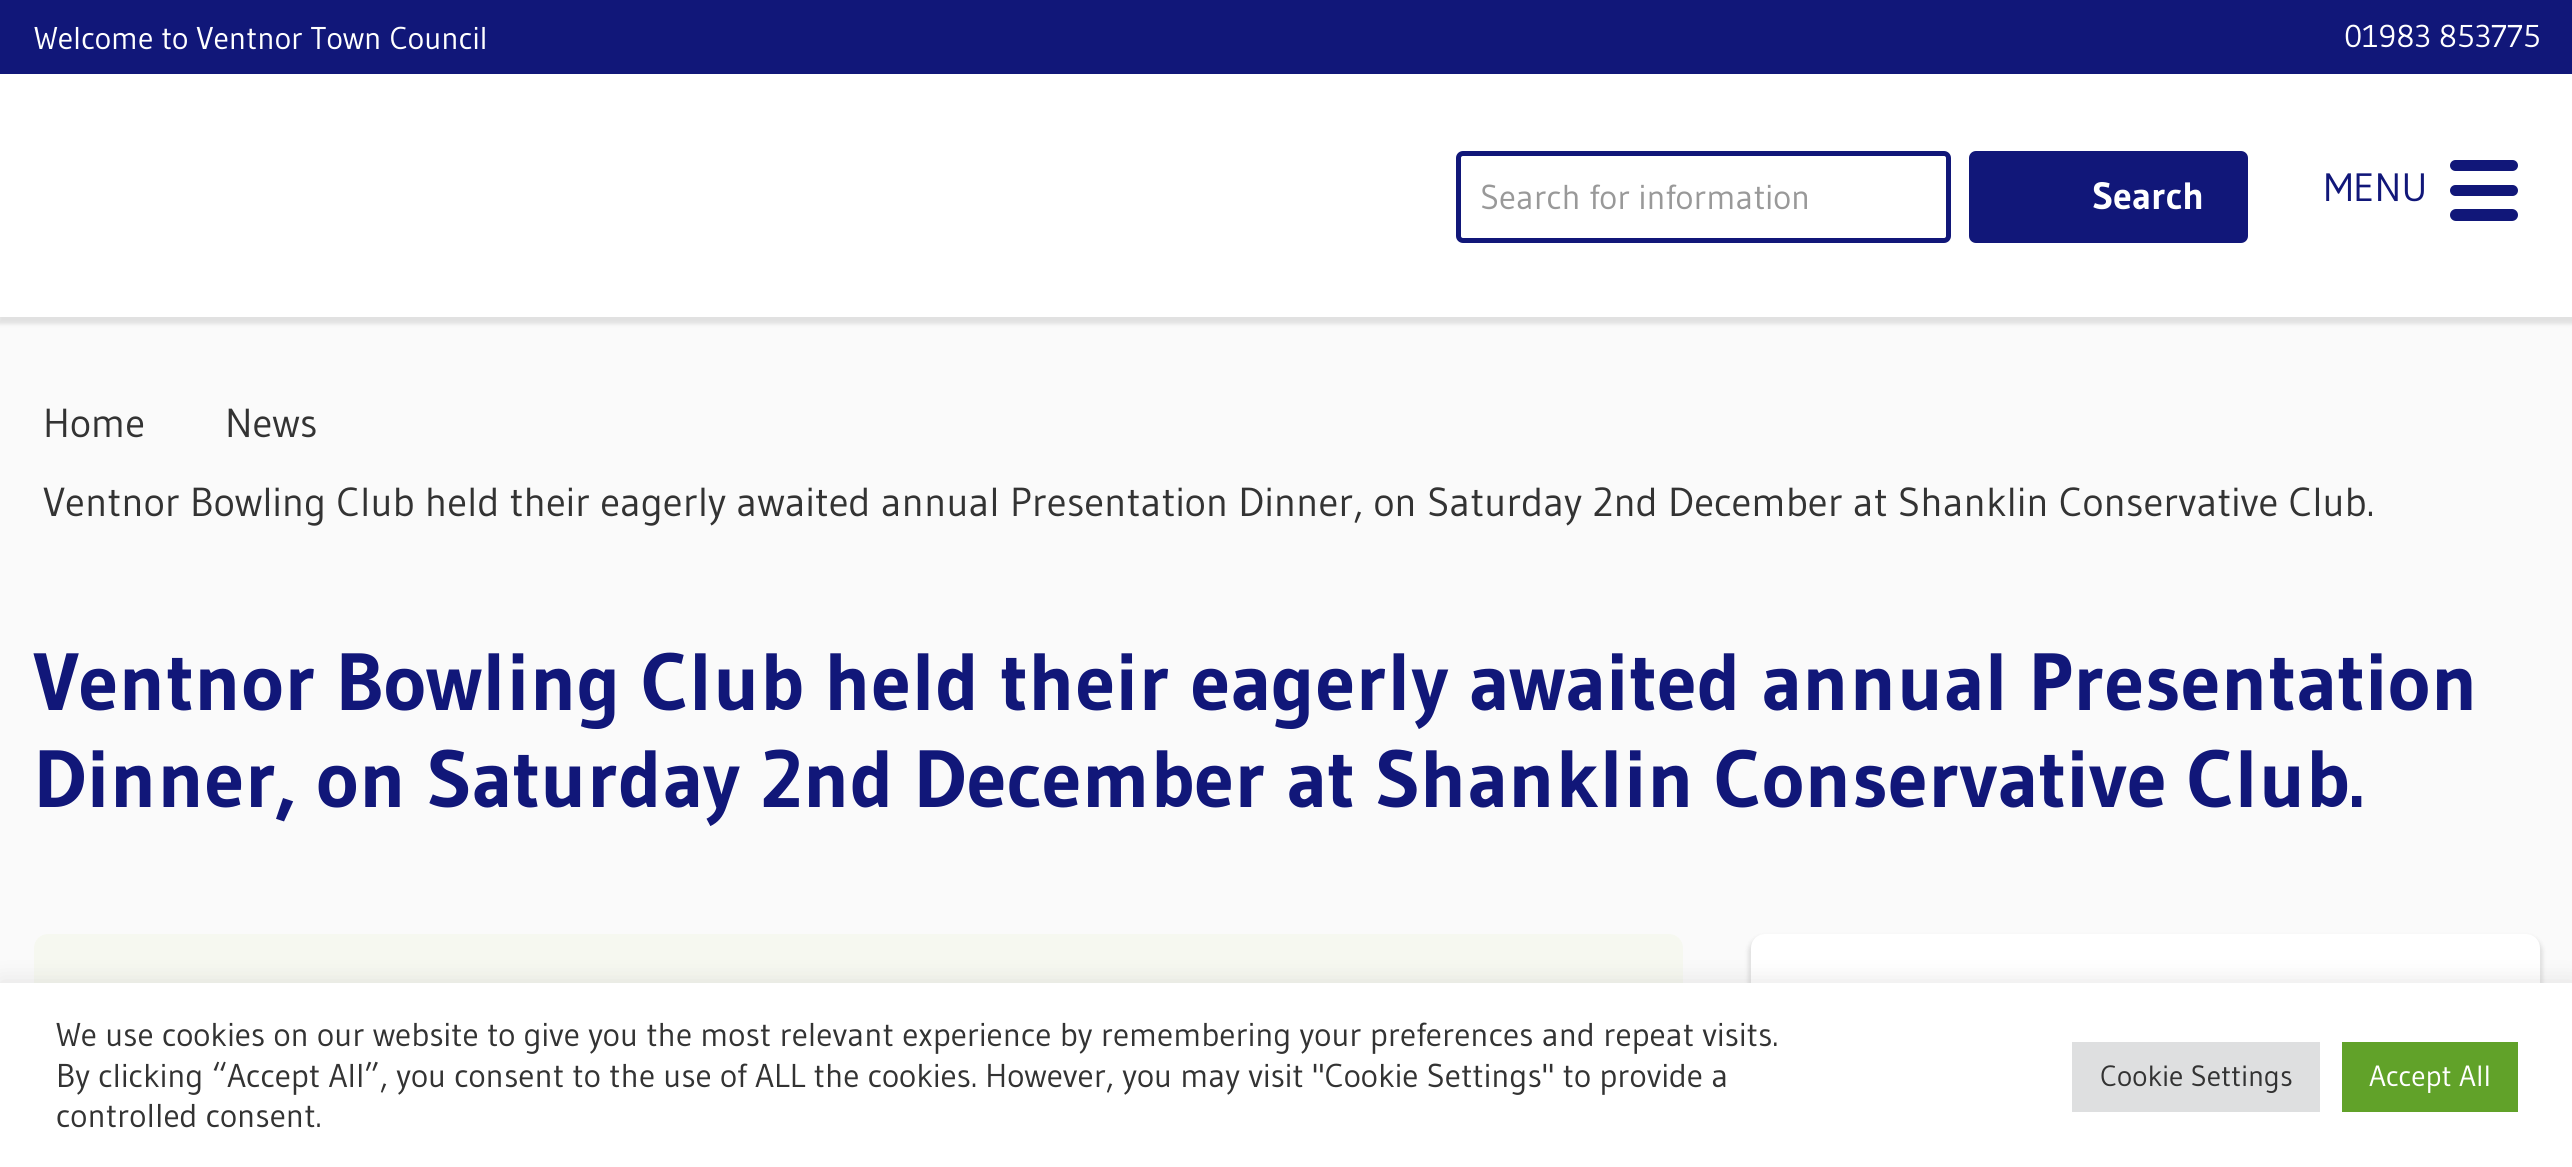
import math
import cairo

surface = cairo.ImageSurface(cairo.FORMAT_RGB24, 2572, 1167)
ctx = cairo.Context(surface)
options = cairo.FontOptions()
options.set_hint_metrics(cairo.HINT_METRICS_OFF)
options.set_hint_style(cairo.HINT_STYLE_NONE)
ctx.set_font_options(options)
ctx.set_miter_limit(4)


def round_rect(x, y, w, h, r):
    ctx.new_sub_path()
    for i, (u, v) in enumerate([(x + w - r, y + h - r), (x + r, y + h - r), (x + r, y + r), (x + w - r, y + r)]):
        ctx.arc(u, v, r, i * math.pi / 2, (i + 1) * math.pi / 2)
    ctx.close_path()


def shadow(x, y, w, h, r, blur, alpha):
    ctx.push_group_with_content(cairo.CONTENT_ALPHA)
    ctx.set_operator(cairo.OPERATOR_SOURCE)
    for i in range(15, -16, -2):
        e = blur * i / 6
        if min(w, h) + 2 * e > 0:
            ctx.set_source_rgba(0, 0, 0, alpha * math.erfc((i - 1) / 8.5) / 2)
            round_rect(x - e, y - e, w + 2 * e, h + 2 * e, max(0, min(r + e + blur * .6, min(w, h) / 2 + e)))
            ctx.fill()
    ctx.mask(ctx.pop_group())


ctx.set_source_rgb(0.98, 0.98, 0.98)
ctx.paint()
ctx.set_source_rgb(0, 0, 0)
shadow(-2, 2, 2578, 322, 0, 2, 0.1)
ctx.set_source_rgb(0.067, 0.09, 0.475)
ctx.rectangle(0, 0, 2572, 74)
ctx.fill()
ctx.select_font_face("Gudea")
ctx.set_font_size(31.5)
ctx.set_source_rgb(1, 1, 1)
ctx.move_to(34, 49)
ctx.show_text("Welcome to Ventnor Town Council")
ctx.move_to(2344, 47)
ctx.show_text("01983 853775")
ctx.rectangle(0, 74, 2572, 243)
ctx.fill()
round_rect(1458.5, 153.5, 490, 87, 4.5)
ctx.set_source_rgb(0.067, 0.09, 0.475)
ctx.set_line_width(5)
ctx.stroke()
ctx.set_font_size(34.5)
ctx.set_source_rgb(0.6, 0.6, 0.6)
ctx.move_to(1480, 209)
ctx.show_text("Search for information")
ctx.set_source_rgb(0.067, 0.09, 0.475)
round_rect(1971.5, 153.5, 274, 87, 4.5)
ctx.fill_preserve()
ctx.stroke()
ctx.select_font_face("Gudea", cairo.FONT_SLANT_NORMAL, cairo.FONT_WEIGHT_BOLD)
ctx.set_font_size(38)
ctx.set_source_rgb(1, 1, 1)
ctx.move_to(2092, 209)
ctx.show_text("Search")
ctx.select_font_face("Gudea")
ctx.set_font_size(39.5)
ctx.set_source_rgb(0.067, 0.09, 0.475)
ctx.move_to(2324, 201)
ctx.show_text("MENU")
round_rect(2450, 209, 68, 12, 6)
ctx.fill()
round_rect(2450, 160, 68, 11, 5.5)
ctx.fill()
round_rect(2450, 185, 68, 11, 5.5)
ctx.fill()
ctx.set_font_size(40.5)
ctx.set_source_rgb(0.2, 0.2, 0.2)
ctx.move_to(43, 437)
ctx.show_text("Home")
ctx.move_to(225, 437)
ctx.show_text("News")
ctx.move_to(43, 516)
ctx.show_text("Ventnor Bowling Club held their eagerly awaited annual Presentation Dinner, on Saturday 2nd December at Shanklin Conservative Club.")
ctx.select_font_face("Gudea", cairo.FONT_SLANT_NORMAL, cairo.FONT_WEIGHT_BOLD)
ctx.set_font_size(81)
ctx.set_source_rgb(0.067, 0.09, 0.475)
ctx.move_to(34, 710)
ctx.show_text("Ventnor Bowling Club held their eagerly awaited annual Presentation")
ctx.move_to(34, 807)
ctx.show_text("Dinner, on Saturday 2nd December at Shanklin Conservative Club.")
ctx.set_source_rgb(0.961, 0.969, 0.941)
round_rect(34, 934, 1649, 218, 14)
ctx.fill()
ctx.set_source_rgb(0, 0, 0)
shadow(1748, 936, 795, 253, 16, 2, 0.1)
ctx.set_source_rgb(1, 1, 1)
round_rect(1751, 934, 789, 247, 14)
ctx.fill()
ctx.set_source_rgb(0.675, 0.671, 0.671)
shadow(0, 981, 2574, 185, 0, 11, 0.3)
ctx.set_source_rgb(1, 1, 1)
ctx.rectangle(0, 983, 2572, 184)
ctx.fill()
ctx.select_font_face("Gudea")
ctx.set_font_size(33)
ctx.set_source_rgb(0.2, 0.2, 0.2)
ctx.move_to(56, 1046)
ctx.show_text("We use cookies on our website to give you the most relevant experience by remembering your preferences and repeat visits.")
ctx.move_to(56, 1087)
ctx.show_text("By clicking “Accept All”, you consent to the use of ALL the cookies. However, you may visit \"Cookie Settings\" to provide a")
ctx.move_to(56, 1127)
ctx.show_text("controlled consent.")
ctx.set_source_rgb(0.871, 0.875, 0.878)
ctx.rectangle(2072, 1042, 248, 70)
ctx.fill()
ctx.set_font_size(29.25)
ctx.set_source_rgb(0.2, 0.2, 0.2)
ctx.move_to(2100, 1086)
ctx.show_text("Cookie Settings")
ctx.set_source_rgb(0.38, 0.635, 0.161)
ctx.rectangle(2342, 1042, 176, 70)
ctx.fill()
ctx.set_source_rgb(1, 1, 1)
ctx.move_to(2369, 1086)
ctx.show_text("Accept All")
surface.write_to_png("page.png")
